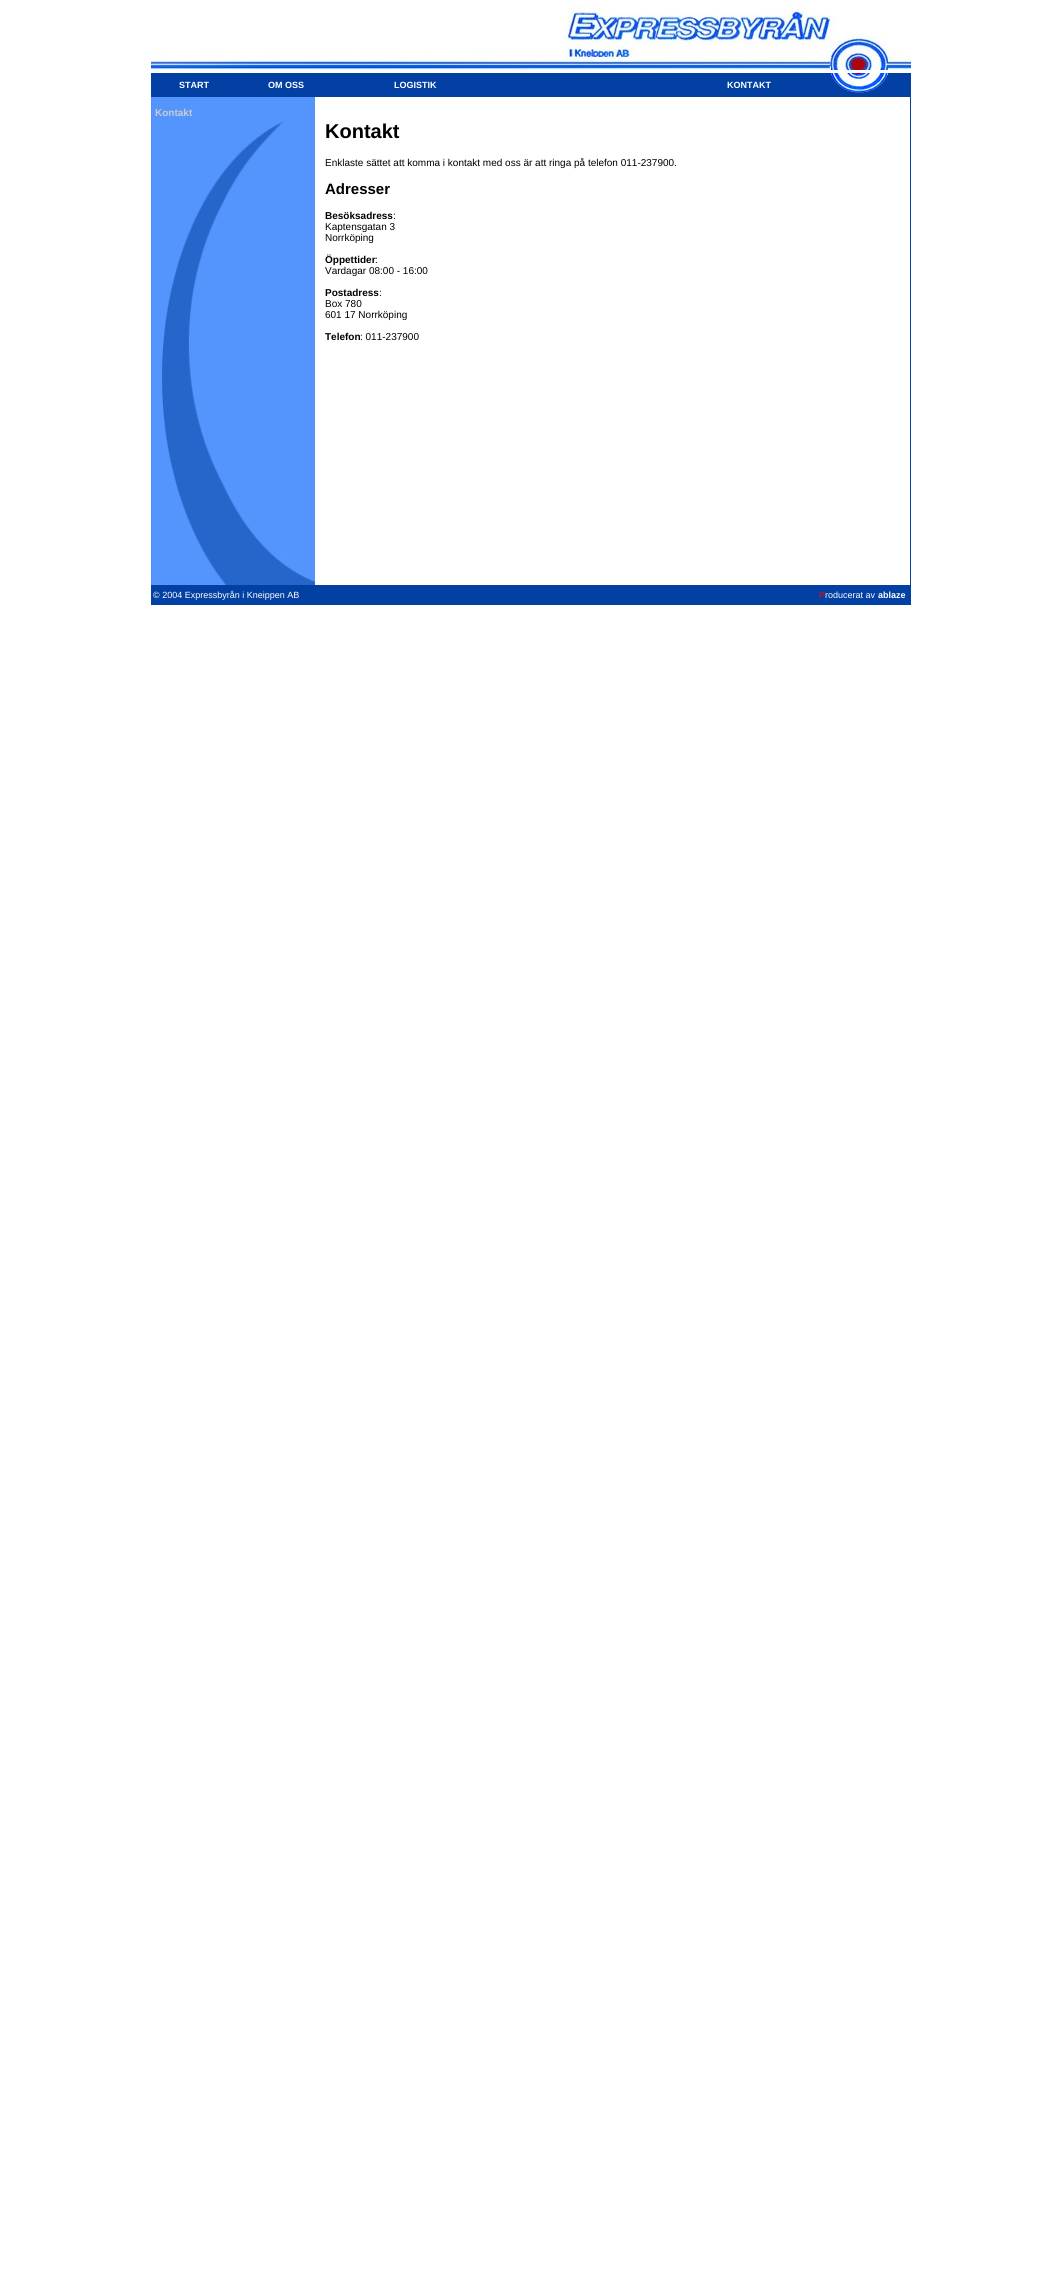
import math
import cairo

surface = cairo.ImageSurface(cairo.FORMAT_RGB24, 1060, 2291)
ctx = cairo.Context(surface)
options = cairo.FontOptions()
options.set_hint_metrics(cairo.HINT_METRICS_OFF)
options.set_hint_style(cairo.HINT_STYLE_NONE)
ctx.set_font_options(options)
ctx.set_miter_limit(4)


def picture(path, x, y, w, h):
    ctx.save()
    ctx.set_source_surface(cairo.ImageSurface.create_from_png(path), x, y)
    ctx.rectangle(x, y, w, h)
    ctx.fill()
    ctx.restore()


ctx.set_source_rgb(1, 1, 1)
ctx.paint()
picture("img1.png", 151, 1, 760, 69)
ctx.set_source_rgb(0.008, 0.251, 0.639)
ctx.rectangle(151, 73, 760, 24)
ctx.fill()
ctx.select_font_face("Liberation Sans", cairo.FONT_SLANT_NORMAL, cairo.FONT_WEIGHT_BOLD)
ctx.set_font_size(9)
ctx.set_source_rgb(1, 1, 1)
ctx.move_to(179, 88)
ctx.show_text("START")
ctx.move_to(268, 88)
ctx.show_text("OM OSS")
ctx.move_to(394, 88)
ctx.show_text("LOGISTIK")
ctx.move_to(727, 88)
ctx.show_text("KONTAKT")
picture("img2.png", 827, 73, 84, 22)
ctx.set_source_rgb(0.008, 0.251, 0.639)
ctx.rectangle(910, 97, 1, 488)
ctx.fill()
picture("img3.png", 151, 97, 164, 488)
ctx.set_font_size(10)
ctx.set_source_rgb(0.8, 0.8, 0.8)
ctx.move_to(155, 116)
ctx.show_text("Kontakt")
ctx.set_font_size(20)
ctx.set_source_rgb(0, 0, 0)
ctx.move_to(325, 138)
ctx.show_text("Kontakt")
ctx.select_font_face("Liberation Sans")
ctx.set_font_size(10)
ctx.move_to(325, 166)
ctx.show_text("Enklaste sättet att komma i kontakt med oss är att ringa på telefon 011-237900.")
ctx.select_font_face("Liberation Sans", cairo.FONT_SLANT_NORMAL, cairo.FONT_WEIGHT_BOLD)
ctx.set_font_size(15)
ctx.move_to(325, 194)
ctx.show_text("Adresser")
ctx.set_font_size(10)
ctx.move_to(325, 219)
ctx.show_text("Besöksadress")
ctx.select_font_face("Liberation Sans")
ctx.move_to(393, 219)
ctx.show_text(":")
ctx.move_to(325, 230)
ctx.show_text("Kaptensgatan 3")
ctx.move_to(325, 241)
ctx.show_text("Norrköping")
ctx.select_font_face("Liberation Sans", cairo.FONT_SLANT_NORMAL, cairo.FONT_WEIGHT_BOLD)
ctx.move_to(325, 263)
ctx.show_text("Öppettider")
ctx.select_font_face("Liberation Sans")
ctx.move_to(375, 263)
ctx.show_text(":")
ctx.move_to(325, 274)
ctx.show_text("Vardagar 08:00 - 16:00")
ctx.select_font_face("Liberation Sans", cairo.FONT_SLANT_NORMAL, cairo.FONT_WEIGHT_BOLD)
ctx.move_to(325, 296)
ctx.show_text("Postadress")
ctx.select_font_face("Liberation Sans")
ctx.move_to(379, 296)
ctx.show_text(":")
ctx.move_to(325, 307)
ctx.show_text("Box 780")
ctx.move_to(325, 318)
ctx.show_text("601 17 Norrköping")
ctx.select_font_face("Liberation Sans", cairo.FONT_SLANT_NORMAL, cairo.FONT_WEIGHT_BOLD)
ctx.move_to(325, 340)
ctx.show_text("Telefon")
ctx.select_font_face("Liberation Sans")
ctx.move_to(360, 340)
ctx.show_text(": 011-237900")
ctx.set_source_rgb(0.008, 0.251, 0.639)
ctx.rectangle(151, 585, 760, 20)
ctx.fill()
ctx.set_font_size(9)
ctx.set_source_rgb(1, 1, 1)
ctx.move_to(153, 598)
ctx.show_text("© 2004 Expressbyrån i Kneippen AB")
ctx.set_source_rgb(1, 0, 0)
ctx.move_to(819, 598)
ctx.show_text("P")
ctx.set_source_rgb(1, 1, 1)
ctx.move_to(825, 598)
ctx.show_text("roducerat av")
ctx.select_font_face("Liberation Sans", cairo.FONT_SLANT_NORMAL, cairo.FONT_WEIGHT_BOLD)
ctx.move_to(878, 598)
ctx.show_text("ablaze")
surface.write_to_png("page.png")
